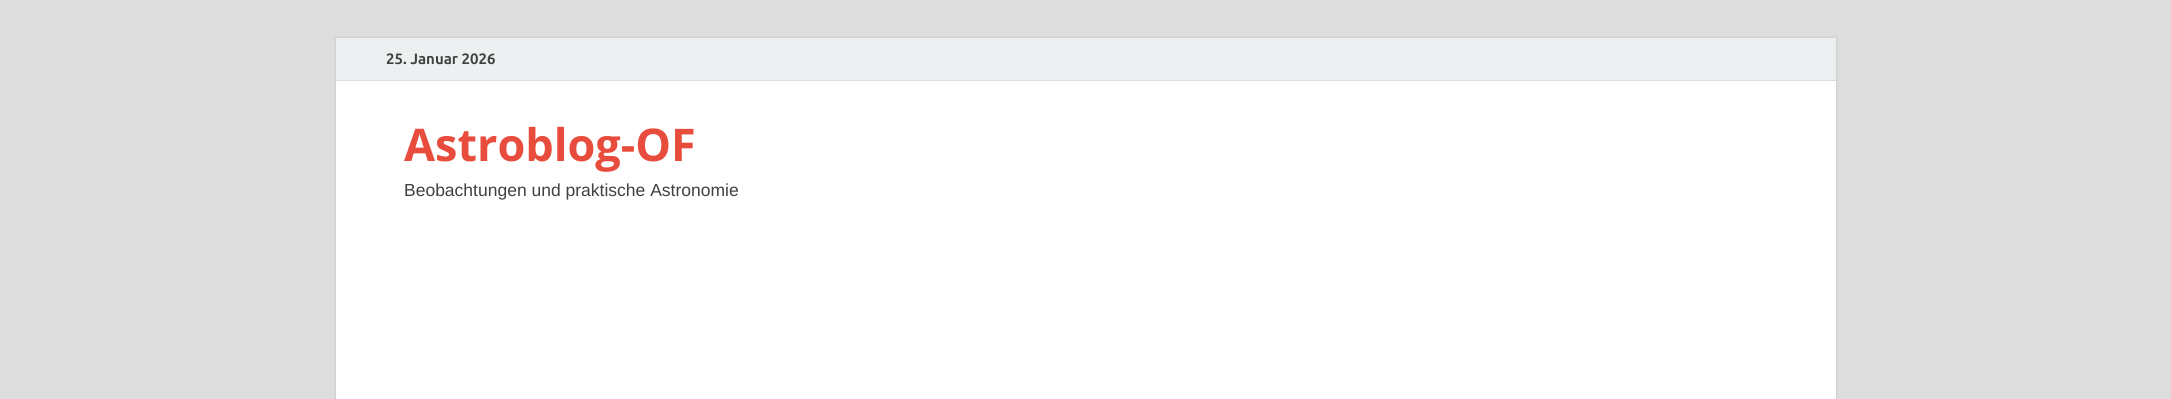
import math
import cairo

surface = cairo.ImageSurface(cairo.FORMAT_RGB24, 2171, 399)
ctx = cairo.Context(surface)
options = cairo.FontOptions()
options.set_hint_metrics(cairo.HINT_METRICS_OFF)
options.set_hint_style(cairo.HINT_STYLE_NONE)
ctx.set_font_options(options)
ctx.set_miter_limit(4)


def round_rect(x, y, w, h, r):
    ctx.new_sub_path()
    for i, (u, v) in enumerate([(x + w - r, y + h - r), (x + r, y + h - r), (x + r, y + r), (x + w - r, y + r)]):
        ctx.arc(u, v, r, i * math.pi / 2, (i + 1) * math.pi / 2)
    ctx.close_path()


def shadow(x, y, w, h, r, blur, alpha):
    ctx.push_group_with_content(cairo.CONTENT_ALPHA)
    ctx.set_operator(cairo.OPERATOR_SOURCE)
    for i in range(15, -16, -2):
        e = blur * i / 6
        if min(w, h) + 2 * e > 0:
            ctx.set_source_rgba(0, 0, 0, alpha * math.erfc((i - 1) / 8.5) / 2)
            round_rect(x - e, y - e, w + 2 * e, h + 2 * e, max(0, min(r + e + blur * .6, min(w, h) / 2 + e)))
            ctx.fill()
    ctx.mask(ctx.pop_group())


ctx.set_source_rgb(0.867, 0.867, 0.867)
ctx.paint()
ctx.set_source_rgb(0.733, 0.733, 0.733)
shadow(336, 38, 1500, 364, 0, 1, 1)
ctx.set_source_rgb(1, 1, 1)
ctx.rectangle(336, 81, 1500, 318)
ctx.fill()
ctx.set_source_rgb(0.925, 0.941, 0.945)
ctx.rectangle(336, 38, 1500, 42)
ctx.fill()
ctx.set_source_rgb(0.867, 0.867, 0.867)
ctx.rectangle(336, 80, 1500, 1)
ctx.fill()
ctx.select_font_face("Ubuntu", cairo.FONT_SLANT_NORMAL, cairo.FONT_WEIGHT_BOLD)
ctx.set_font_size(15)
ctx.set_source_rgb(0.251, 0.251, 0.251)
ctx.move_to(386, 64)
ctx.show_text("25. Januar 2026")
ctx.select_font_face("Open Sans", cairo.FONT_SLANT_NORMAL, cairo.FONT_WEIGHT_BOLD)
ctx.set_font_size(45)
ctx.set_source_rgb(0.906, 0.298, 0.235)
ctx.move_to(404, 161)
ctx.show_text("Astroblog-OF")
ctx.select_font_face("Liberation Sans")
ctx.set_font_size(17.5)
ctx.set_source_rgb(0.251, 0.251, 0.251)
ctx.move_to(404, 196)
ctx.show_text("Beobachtungen und praktische Astronomie")
surface.write_to_png("page.png")
